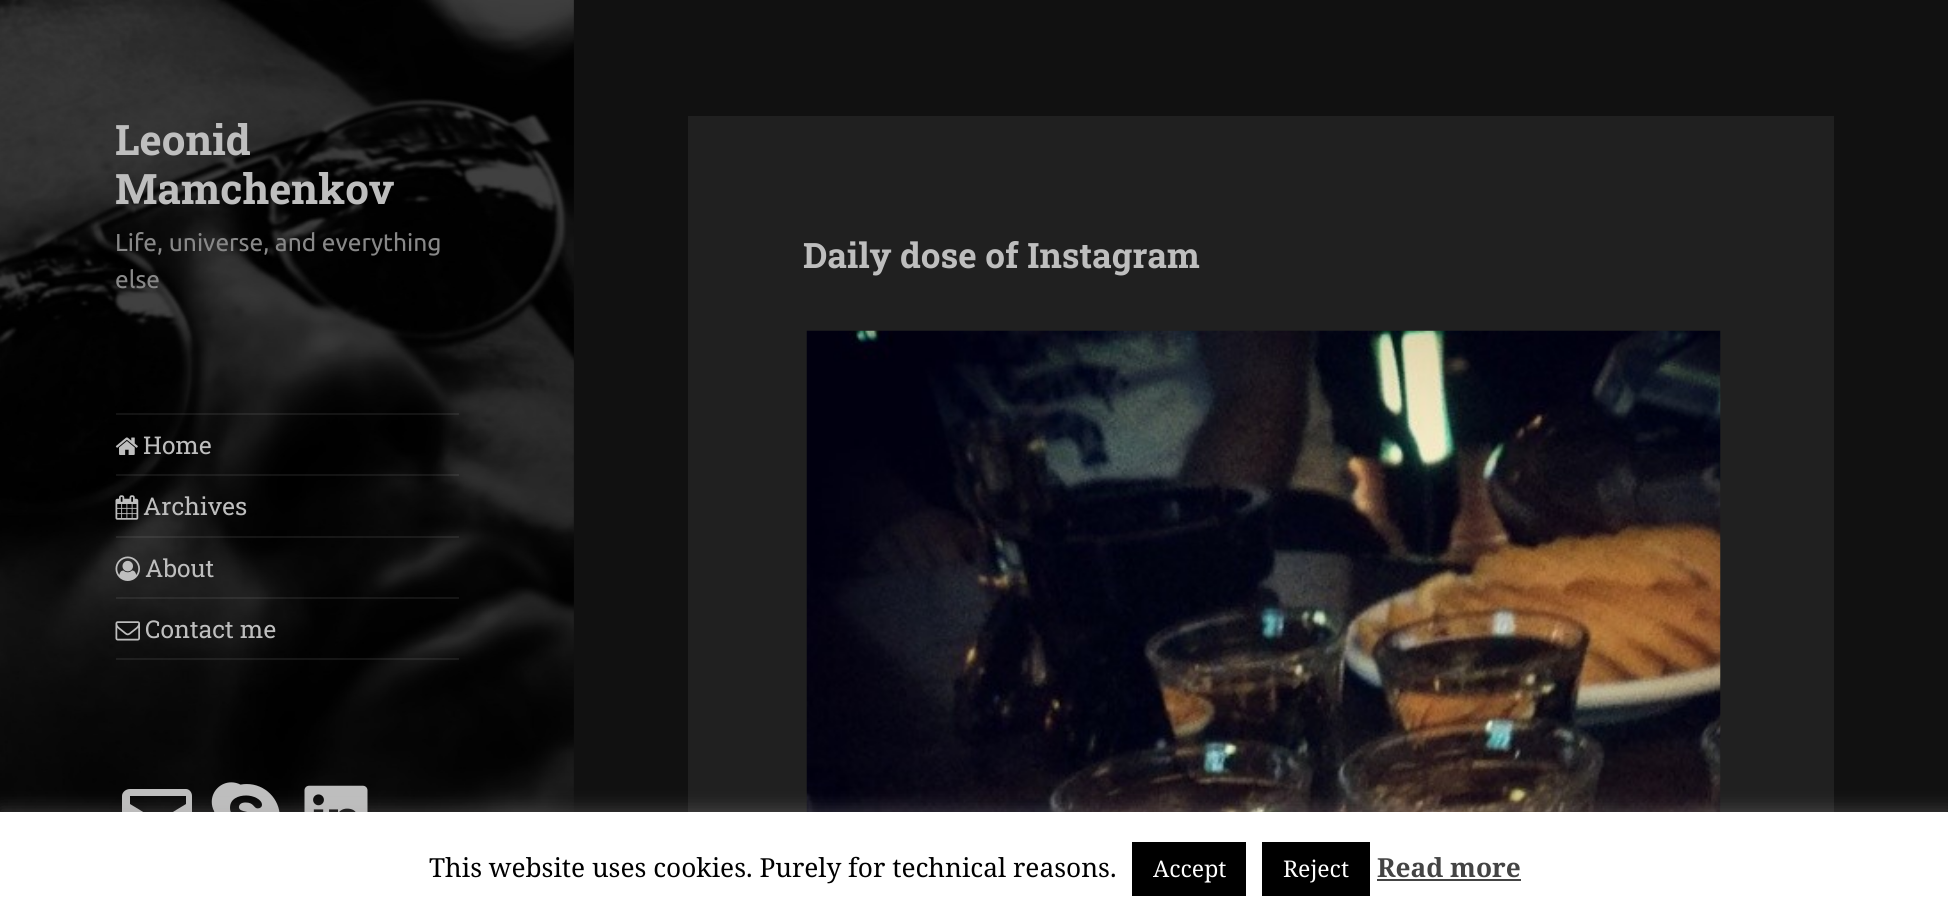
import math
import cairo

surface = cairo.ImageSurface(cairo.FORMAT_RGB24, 1948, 917)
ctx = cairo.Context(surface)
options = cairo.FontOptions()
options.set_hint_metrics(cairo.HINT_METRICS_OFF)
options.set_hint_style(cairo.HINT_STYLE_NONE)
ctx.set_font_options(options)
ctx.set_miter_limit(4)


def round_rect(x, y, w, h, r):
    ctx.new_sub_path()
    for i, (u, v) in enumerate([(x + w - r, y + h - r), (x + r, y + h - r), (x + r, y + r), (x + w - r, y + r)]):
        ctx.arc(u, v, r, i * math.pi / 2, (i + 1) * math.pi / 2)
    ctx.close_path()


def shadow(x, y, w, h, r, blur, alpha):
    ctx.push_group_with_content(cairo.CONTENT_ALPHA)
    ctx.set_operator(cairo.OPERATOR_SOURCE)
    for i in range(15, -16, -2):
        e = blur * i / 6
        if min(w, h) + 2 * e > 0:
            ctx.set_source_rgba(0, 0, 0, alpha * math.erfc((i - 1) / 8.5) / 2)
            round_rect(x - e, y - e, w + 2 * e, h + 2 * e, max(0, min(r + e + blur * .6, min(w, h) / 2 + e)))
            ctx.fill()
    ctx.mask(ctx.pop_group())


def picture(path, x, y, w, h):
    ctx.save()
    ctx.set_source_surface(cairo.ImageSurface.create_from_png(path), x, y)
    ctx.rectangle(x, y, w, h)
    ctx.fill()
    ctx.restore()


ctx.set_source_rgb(0.067, 0.067, 0.067)
ctx.paint()
picture("img1.png", 0, 0, 574, 812)
ctx.select_font_face("Roboto Slab", cairo.FONT_SLANT_NORMAL, cairo.FONT_WEIGHT_BOLD)
ctx.set_font_size(42)
ctx.set_source_rgb(0.745, 0.745, 0.745)
ctx.move_to(115, 155)
ctx.show_text("Leonid")
ctx.move_to(115, 204)
ctx.show_text("Mamchenkov")
ctx.select_font_face("Ubuntu")
ctx.set_font_size(24.5)
ctx.set_source_rgb(0.533, 0.533, 0.533)
ctx.move_to(115, 251)
ctx.show_text("Life, universe, and everything")
ctx.move_to(115, 288)
ctx.show_text("else")
ctx.set_source_rgba(0.745, 0.745, 0.745, 0.1)
ctx.rectangle(116, 413, 343, 2)
ctx.fill()
ctx.rectangle(116, 658, 343, 2)
ctx.fill()
picture("img2.png", 115, 437, 23, 18)
ctx.select_font_face("Roboto Slab")
ctx.set_source_rgb(0.745, 0.745, 0.745)
ctx.move_to(143, 454)
ctx.show_text("Home")
ctx.set_source_rgba(0.745, 0.745, 0.745, 0.1)
ctx.rectangle(116, 474, 343, 2)
ctx.fill()
picture("img3.png", 115, 495, 24, 25)
ctx.set_source_rgb(0.745, 0.745, 0.745)
ctx.move_to(143, 515)
ctx.show_text("Archives")
ctx.set_source_rgba(0.745, 0.745, 0.745, 0.1)
ctx.rectangle(116, 536, 343, 2)
ctx.fill()
picture("img4.png", 115, 556, 25, 25)
ctx.set_source_rgb(0.745, 0.745, 0.745)
ctx.move_to(145, 577)
ctx.show_text("About")
ctx.set_source_rgba(0.745, 0.745, 0.745, 0.1)
ctx.rectangle(116, 597, 343, 2)
ctx.fill()
picture("img5.png", 115, 621, 25, 20)
ctx.set_source_rgb(0.745, 0.745, 0.745)
ctx.move_to(145, 638)
ctx.show_text("Contact me")
ctx.new_path()
ctx.move_to(186, 789)
ctx.line_to(130, 789)
ctx.curve_to(126, 789, 122, 792, 122, 796)
ctx.line_to(122, 838)
ctx.curve_to(122, 842, 126, 845, 130, 845)
ctx.line_to(186, 845)
ctx.curve_to(189, 845, 192, 842, 192, 838)
ctx.line_to(192, 796)
ctx.curve_to(192, 792, 189, 789, 186, 789)
ctx.close_path()
ctx.move_to(186, 804)
ctx.line_to(158, 821)
ctx.line_to(130, 804)
ctx.line_to(130, 796)
ctx.line_to(186, 796)
ctx.close_path()
ctx.fill()
picture("img6.png", 211, 782, 69, 30)
picture("img7.png", 304, 785, 64, 27)
ctx.set_source_rgb(0.125, 0.125, 0.125)
ctx.rectangle(688, 116, 1146, 696)
ctx.fill()
ctx.select_font_face("Roboto Slab", cairo.FONT_SLANT_NORMAL, cairo.FONT_WEIGHT_BOLD)
ctx.set_font_size(35)
ctx.set_source_rgb(0.745, 0.745, 0.745)
ctx.move_to(803, 268)
ctx.show_text("Daily dose of Instagram")
picture("img8.png", 806, 330, 915, 482)
ctx.set_source_rgb(0.675, 0.671, 0.671)
shadow(0, 810, 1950, 105, 0, 9, 0.3)
ctx.set_source_rgb(1, 1, 1)
ctx.rectangle(0, 812, 1948, 105)
ctx.fill()
ctx.select_font_face("Noto Serif")
ctx.set_font_size(26.25)
ctx.set_source_rgb(0, 0, 0)
ctx.move_to(429, 877)
ctx.show_text("This website uses cookies. Purely for technical reasons.")
ctx.rectangle(1132, 842, 114, 54)
ctx.fill()
ctx.set_font_size(23)
ctx.set_source_rgb(1, 1, 1)
ctx.move_to(1153, 877)
ctx.show_text("Accept")
ctx.set_source_rgb(0, 0, 0)
ctx.rectangle(1262, 842, 108, 54)
ctx.fill()
ctx.set_source_rgb(1, 1, 1)
ctx.move_to(1283, 877)
ctx.show_text("Reject")
ctx.select_font_face("Noto Serif", cairo.FONT_SLANT_NORMAL, cairo.FONT_WEIGHT_BOLD)
ctx.set_font_size(26.25)
ctx.set_source_rgb(0.267, 0.267, 0.267)
ctx.move_to(1377, 877)
ctx.show_text("Read more")
ctx.rectangle(1377, 879, 144, 2)
ctx.fill()
surface.write_to_png("page.png")
